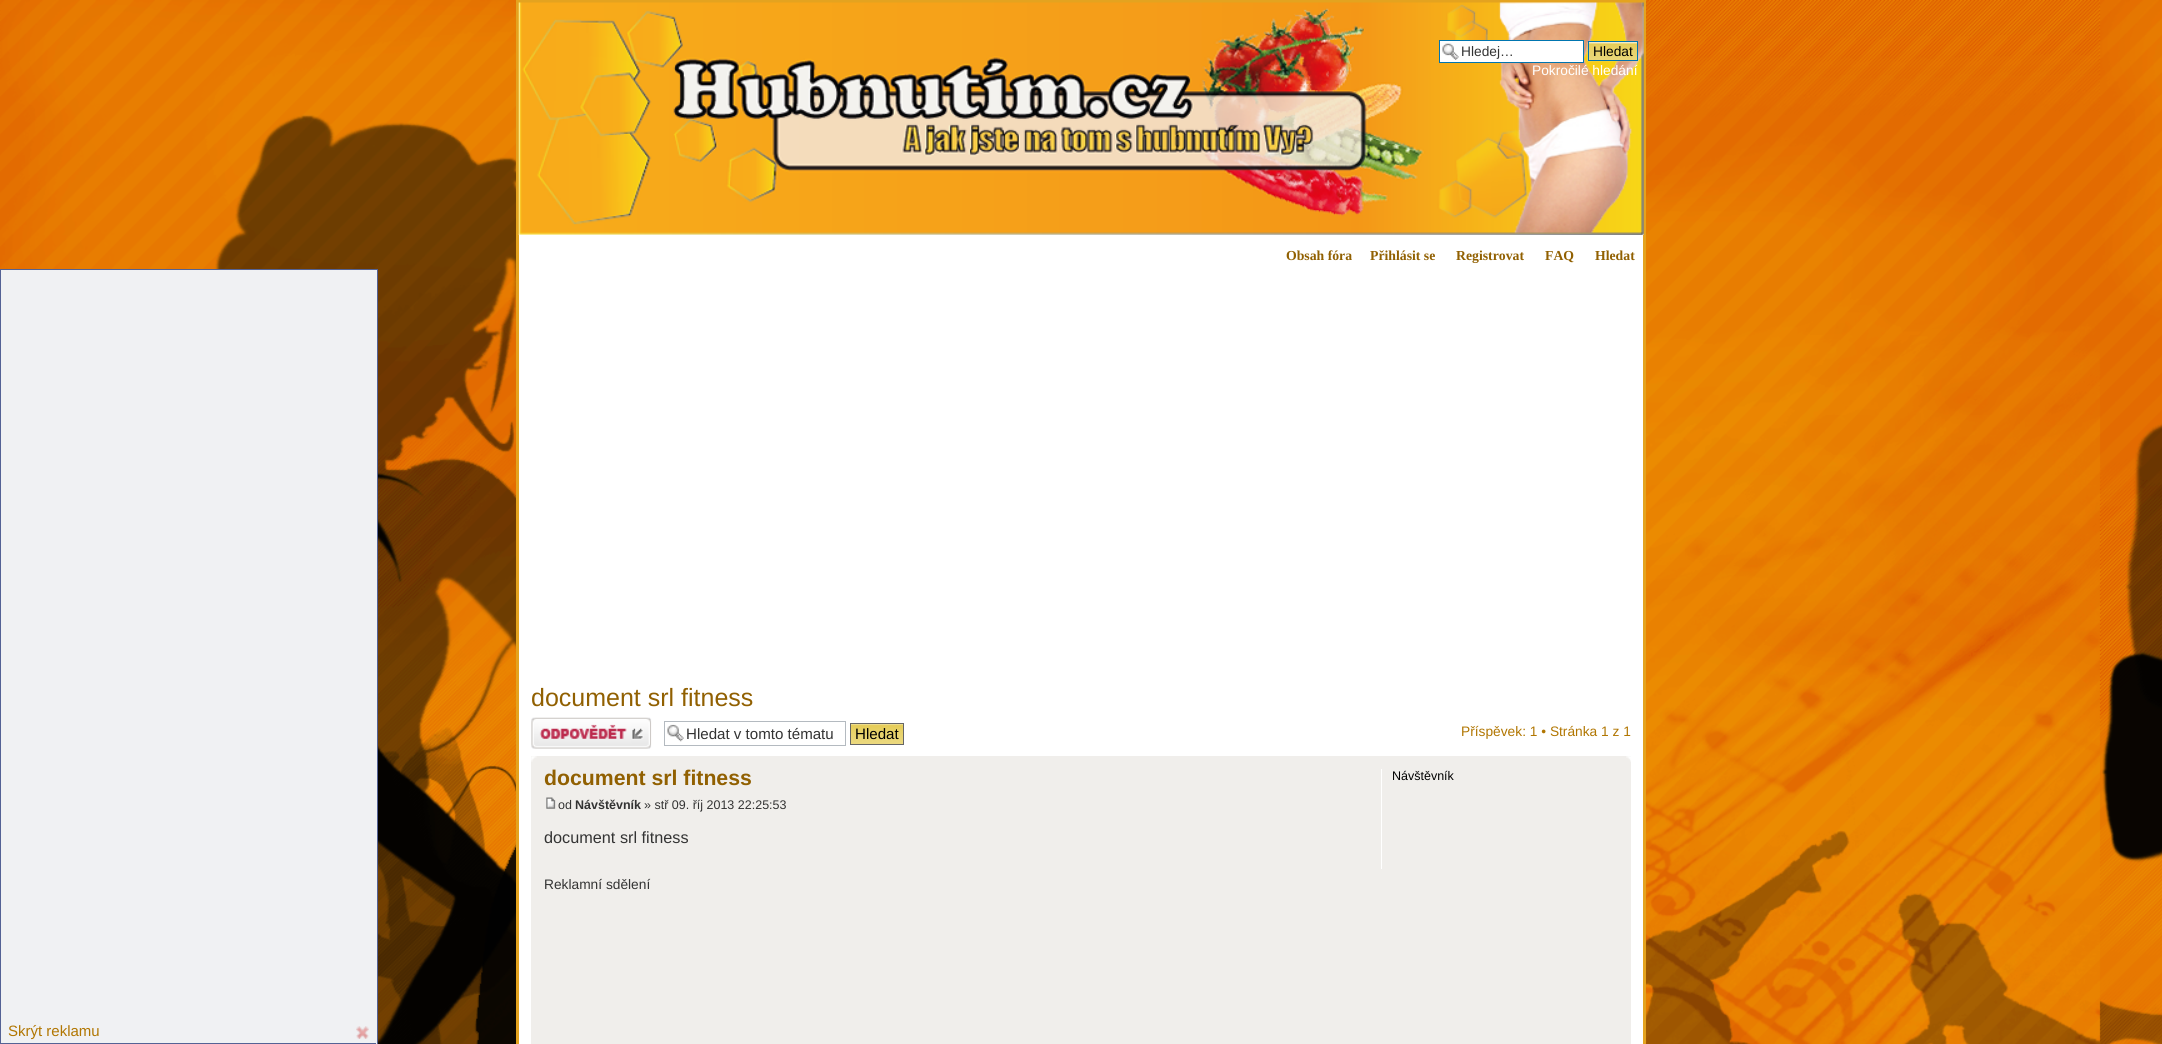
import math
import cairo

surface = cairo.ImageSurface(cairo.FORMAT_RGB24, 2162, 1044)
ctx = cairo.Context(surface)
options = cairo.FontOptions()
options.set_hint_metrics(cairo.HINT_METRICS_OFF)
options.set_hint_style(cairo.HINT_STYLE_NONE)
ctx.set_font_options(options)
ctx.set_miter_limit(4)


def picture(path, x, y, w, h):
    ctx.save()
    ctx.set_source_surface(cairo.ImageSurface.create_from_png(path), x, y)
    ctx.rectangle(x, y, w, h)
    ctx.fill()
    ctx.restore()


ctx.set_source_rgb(1, 1, 1)
ctx.paint()
picture("img1.png", 0, 0, 2162, 1044)
ctx.set_source_rgb(1, 1, 1)
ctx.rectangle(519, 235, 1124, 809)
ctx.fill()
ctx.rectangle(517.5, 1.5, 1127, 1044)
ctx.set_source_rgb(0.894, 0.639, 0.122)
ctx.set_line_width(3)
ctx.stroke()
picture("img2.png", 518, 2, 1126, 233)
ctx.set_source_rgb(1, 1, 1)
ctx.rectangle(1440, 41, 143, 21)
ctx.fill()
picture("img3.png", 1442, 43, 17, 17)
ctx.rectangle(1439.5, 40.5, 144, 22)
ctx.set_source_rgb(0, 0.459, 0.69)
ctx.set_line_width(1)
ctx.stroke()
ctx.select_font_face("Liberation Sans")
ctx.set_font_size(13.75)
ctx.set_source_rgb(0.2, 0.2, 0.2)
ctx.move_to(1461, 56)
ctx.show_text("Hledej…")
ctx.set_source_rgb(0.98, 0.98, 0.98)
ctx.rectangle(1589, 42, 48, 1)
ctx.fill()
picture("img4.png", 1587, 42, 51, 20)
ctx.rectangle(1588.5, 41.5, 49, 19)
ctx.set_source_rgb(0, 0.459, 0.69)
ctx.stroke()
ctx.set_source_rgb(0, 0, 0)
ctx.move_to(1593, 56)
ctx.show_text("Hledat")
ctx.set_source_rgb(1, 1, 1)
ctx.move_to(1532, 75)
ctx.show_text("Pokročilé hledání")
ctx.select_font_face("Liberation Serif", cairo.FONT_SLANT_NORMAL, cairo.FONT_WEIGHT_BOLD)
ctx.set_source_rgb(0.569, 0.376, 0.004)
ctx.move_to(1286, 260)
ctx.show_text("Obsah fóra")
ctx.move_to(1370, 260)
ctx.show_text("Přihlásit se")
ctx.move_to(1456, 260)
ctx.show_text("Registrovat")
ctx.move_to(1545, 260)
ctx.show_text("FAQ")
ctx.move_to(1595, 260)
ctx.show_text("Hledat")
ctx.select_font_face("Liberation Sans")
ctx.set_font_size(25)
ctx.move_to(531, 706)
ctx.show_text("document srl fitness")
picture("img5.png", 531, 717, 121, 32)
picture("img6.png", 667, 724, 17, 18)
ctx.rectangle(664.5, 721.5, 181, 24)
ctx.set_source_rgb(0.706, 0.729, 0.753)
ctx.stroke()
ctx.set_font_size(15.1)
ctx.set_source_rgb(0.2, 0.2, 0.2)
ctx.move_to(686, 739)
ctx.show_text("Hledat v tomto tématu")
picture("img7.png", 851, 724, 52, 20)
ctx.rectangle(850.5, 723.5, 53, 21)
ctx.set_source_rgb(0.4, 0.4, 0.4)
ctx.stroke()
ctx.set_source_rgb(0, 0, 0)
ctx.move_to(855, 739)
ctx.show_text("Hledat")
ctx.set_font_size(13.75)
ctx.set_source_rgb(0.694, 0.463, 0.004)
ctx.move_to(1461, 736)
ctx.show_text("Příspěvek: 1 • Stránka 1 z 1")
ctx.set_source_rgb(0.941, 0.933, 0.918)
ctx.rectangle(531, 756, 1100, 288)
ctx.fill()
picture("img8.png", 531, 756, 6, 6)
picture("img9.png", 1626, 756, 5, 6)
ctx.select_font_face("Liberation Sans", cairo.FONT_SLANT_NORMAL, cairo.FONT_WEIGHT_BOLD)
ctx.set_font_size(21.25)
ctx.set_source_rgb(0.569, 0.376, 0.004)
ctx.move_to(544, 785)
ctx.show_text("document srl fitness")
picture("img10.png", 546, 797, 10, 12)
ctx.select_font_face("Liberation Sans")
ctx.set_font_size(12.5)
ctx.set_source_rgb(0.2, 0.2, 0.2)
ctx.move_to(558, 809)
ctx.show_text("od")
ctx.select_font_face("Liberation Sans", cairo.FONT_SLANT_NORMAL, cairo.FONT_WEIGHT_BOLD)
ctx.move_to(575, 809)
ctx.show_text("Návštěvník")
ctx.select_font_face("Liberation Sans")
ctx.move_to(644, 809)
ctx.show_text("» stř 09. říj 2013 22:25:53")
ctx.set_font_size(16.25)
ctx.move_to(544, 843)
ctx.show_text("document srl fitness")
ctx.set_font_size(13.75)
ctx.move_to(544, 889)
ctx.show_text("Reklamní sdělení")
ctx.set_source_rgb(1, 1, 1)
ctx.rectangle(1381, 769, 1, 100)
ctx.fill()
ctx.set_font_size(12.5)
ctx.set_source_rgb(0, 0, 0)
ctx.move_to(1392, 780)
ctx.show_text("Návštěvník")
ctx.set_source_rgb(0.941, 0.945, 0.953)
ctx.rectangle(0.5, 269.5, 377, 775)
ctx.fill_preserve()
ctx.set_source_rgb(0.329, 0.384, 0.584)
ctx.stroke()
picture("img11.png", 356, 1026, 13, 13)
ctx.rectangle(1, 1043, 375, 1)
ctx.fill()
ctx.set_font_size(15)
ctx.set_source_rgb(0.694, 0.463, 0.004)
ctx.move_to(8, 1036)
ctx.show_text("Skrýt reklamu")
surface.write_to_png("page.png")
